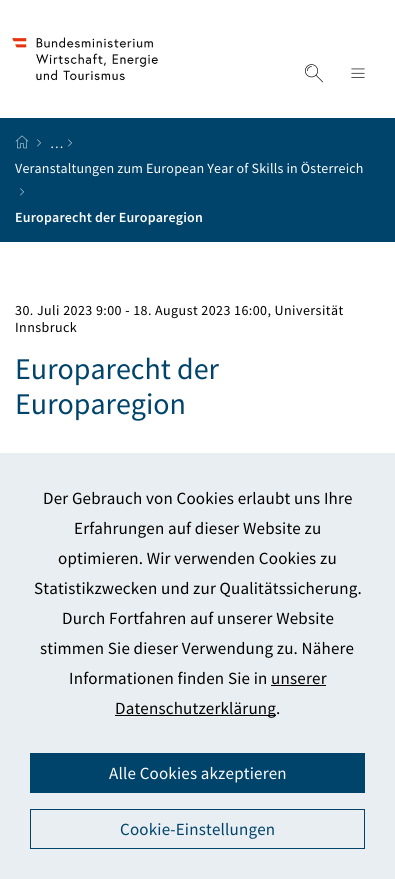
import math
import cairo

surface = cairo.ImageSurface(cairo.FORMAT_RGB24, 395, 879)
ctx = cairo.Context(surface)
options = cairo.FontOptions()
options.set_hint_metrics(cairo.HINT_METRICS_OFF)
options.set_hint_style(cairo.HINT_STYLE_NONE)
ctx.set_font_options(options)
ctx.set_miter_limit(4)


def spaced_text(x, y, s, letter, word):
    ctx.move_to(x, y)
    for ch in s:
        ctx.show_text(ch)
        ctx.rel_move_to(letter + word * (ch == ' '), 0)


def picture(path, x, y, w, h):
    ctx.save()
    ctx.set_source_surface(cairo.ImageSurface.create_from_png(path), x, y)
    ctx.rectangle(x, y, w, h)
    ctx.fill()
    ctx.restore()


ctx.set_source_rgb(1, 1, 1)
ctx.paint()
picture("img1.png", 12, 37, 146, 44)
picture("img2.png", 305, 64, 18, 19)
picture("img3.png", 351, 68, 14, 10)
ctx.set_source_rgb(0, 0.263, 0.42)
ctx.rectangle(0, 118, 395, 124)
ctx.fill()
picture("img4.png", 15, 135, 14, 14)
picture("img5.png", 37, 139, 4, 8)
picture("img5.png", 68, 139, 4, 8)
ctx.select_font_face("Source Sans Pro")
ctx.set_font_size(14)
ctx.set_source_rgb(1, 1, 1)
spaced_text(50, 148, "…", 0.18, 0)
spaced_text(15, 173, "Veranstaltungen zum European Year of Skills in Österreich", 0.18, 0)
picture("img5.png", 20, 188, 4, 8)
ctx.select_font_face("Source Sans Pro SemiBold")
spaced_text(15, 222, "Europarecht der Europaregion", 0.18, 0)
ctx.select_font_face("Source Sans Pro")
ctx.set_source_rgb(0, 0, 0)
spaced_text(15, 315, "30. Juli 2023 9:00 - 18. August 2023 16:00, Universität", 0.42, 0)
spaced_text(15, 332, "Innsbruck", 0.42, 0)
ctx.set_font_size(30)
ctx.set_source_rgb(0, 0.263, 0.42)
ctx.move_to(15, 379)
ctx.show_text("Europarecht der")
ctx.move_to(15, 414)
ctx.show_text("Europaregion")
ctx.set_source_rgb(0.91, 0.933, 0.945)
ctx.rectangle(0, 453, 395, 426)
ctx.fill()
ctx.set_font_size(17)
ctx.set_source_rgb(0, 0, 0)
spaced_text(43, 504, "Der Gebrauch von Cookies erlaubt uns Ihre", 0.18, 0)
spaced_text(74, 534, "Erfahrungen auf dieser Website zu", 0.18, 0)
spaced_text(58, 564, "optimieren. Wir verwenden Cookies zu", 0.18, 0)
spaced_text(34, 594, "Statistikzwecken und zur Qualitätssicherung.", 0.18, 0)
spaced_text(62, 624, "Durch Fortfahren auf unserer Website", 0.18, 0)
spaced_text(40, 654, "stimmen Sie dieser Verwendung zu. Nähere", 0.18, 0)
spaced_text(69, 684, "Informationen finden Sie in unserer", 0.18, 0)
ctx.rectangle(115, 715, 161, 1)
ctx.fill()
spaced_text(115, 714, "Datenschutzerklärung.", 0.18, 0)
ctx.rectangle(271, 685, 55, 1)
ctx.fill()
ctx.set_source_rgb(0, 0.263, 0.42)
ctx.rectangle(30, 753, 335, 40)
ctx.fill()
ctx.set_source_rgb(1, 1, 1)
spaced_text(109, 779, "Alle Cookies akzeptieren", 0.18, 0)
ctx.rectangle(30.5, 809.5, 334, 39)
ctx.set_source_rgb(0, 0.263, 0.42)
ctx.set_line_width(1)
ctx.stroke()
spaced_text(120, 835, "Cookie-Einstellungen", 0.18, 0)
surface.write_to_png("page.png")
